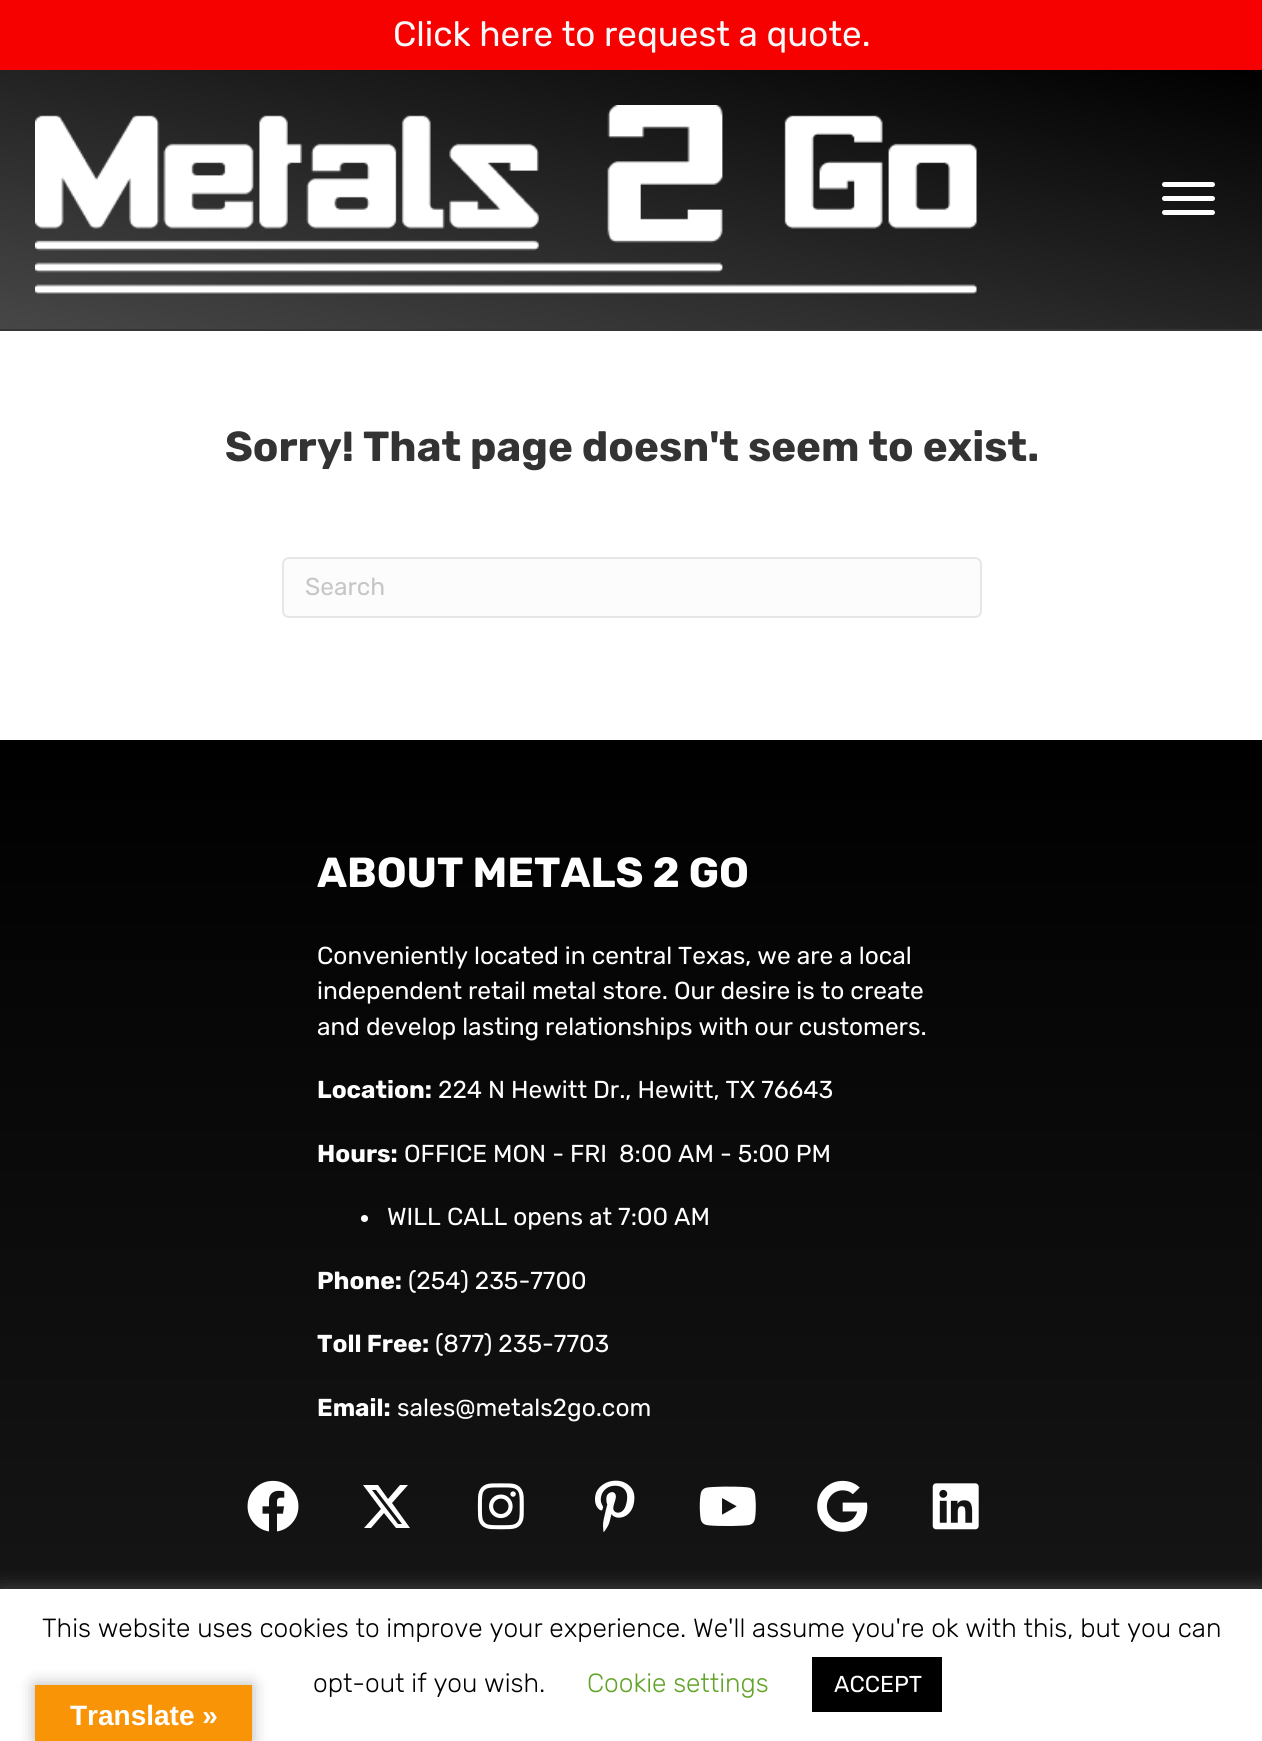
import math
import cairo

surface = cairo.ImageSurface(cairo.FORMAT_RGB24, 1262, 1741)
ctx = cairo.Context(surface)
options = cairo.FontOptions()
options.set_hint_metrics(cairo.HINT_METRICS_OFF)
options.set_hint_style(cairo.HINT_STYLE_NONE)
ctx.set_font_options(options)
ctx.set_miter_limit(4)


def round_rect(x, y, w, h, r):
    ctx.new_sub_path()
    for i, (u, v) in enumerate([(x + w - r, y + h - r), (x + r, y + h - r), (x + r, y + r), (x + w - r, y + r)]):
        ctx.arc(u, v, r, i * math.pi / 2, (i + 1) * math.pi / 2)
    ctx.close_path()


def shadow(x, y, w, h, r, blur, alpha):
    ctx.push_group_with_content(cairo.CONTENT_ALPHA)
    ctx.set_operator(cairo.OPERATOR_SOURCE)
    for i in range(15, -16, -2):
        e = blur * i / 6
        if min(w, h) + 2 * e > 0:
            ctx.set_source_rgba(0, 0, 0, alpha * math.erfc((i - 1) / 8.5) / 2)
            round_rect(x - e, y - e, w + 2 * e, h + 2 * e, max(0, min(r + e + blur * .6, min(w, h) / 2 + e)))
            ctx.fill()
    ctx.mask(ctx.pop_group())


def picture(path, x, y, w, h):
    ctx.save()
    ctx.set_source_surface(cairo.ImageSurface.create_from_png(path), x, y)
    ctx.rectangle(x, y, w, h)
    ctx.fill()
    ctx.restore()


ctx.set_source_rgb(1, 1, 1)
ctx.paint()
ctx.set_source_rgb(0.961, 0, 0)
ctx.rectangle(0, 0, 1262, 70)
ctx.fill()
ctx.select_font_face("Rubik")
ctx.set_font_size(35)
ctx.set_source_rgb(0.969, 0.969, 0.969)
ctx.move_to(393, 46)
ctx.show_text("Click here to request a quote.")
gradient = cairo.LinearGradient(679, -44, 584, 443)
gradient.add_color_stop_rgba(0, 0, 0, 0, 1)
gradient.add_color_stop_rgba(1, 0.278, 0.278, 0.278, 1)
ctx.set_source(gradient)
ctx.rectangle(0, 70, 1262, 259)
ctx.fill()
ctx.set_source_rgb(0.208, 0.208, 0.208)
ctx.rectangle(0, 329, 1262, 2)
ctx.fill()
picture("img1.png", 35, 105, 942, 189)
ctx.set_source_rgb(1, 1, 1)
round_rect(1162, 196, 53, 5, 2.5)
ctx.fill()
round_rect(1162, 182, 53, 5, 2.5)
ctx.fill()
round_rect(1162, 210, 53, 5, 2.5)
ctx.fill()
ctx.select_font_face("Rubik", cairo.FONT_SLANT_NORMAL, cairo.FONT_WEIGHT_BOLD)
ctx.set_font_size(42)
ctx.set_source_rgb(0.2, 0.2, 0.2)
ctx.move_to(225, 461)
ctx.show_text("Sorry! That page doesn't seem to exist.")
ctx.set_source_rgb(0.988, 0.988, 0.988)
round_rect(283, 558, 698, 59, 6)
ctx.fill_preserve()
ctx.set_source_rgb(0.902, 0.902, 0.902)
ctx.stroke()
ctx.select_font_face("Rubik")
ctx.set_font_size(24.5)
ctx.set_source_rgb(0.776, 0.776, 0.776)
ctx.move_to(305, 595)
ctx.show_text("Search")
gradient = cairo.LinearGradient(632, 740, 632, 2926)
gradient.add_color_stop_rgba(0, 0, 0, 0, 1)
gradient.add_color_stop_rgba(1, 0.208, 0.208, 0.208, 1)
ctx.set_source(gradient)
ctx.rectangle(0, 740, 1262, 849)
ctx.fill()
ctx.select_font_face("Rubik", cairo.FONT_SLANT_NORMAL, cairo.FONT_WEIGHT_BOLD)
ctx.set_font_size(42)
ctx.set_source_rgb(1, 1, 1)
ctx.move_to(317, 887)
ctx.show_text("ABOUT METALS 2 GO")
ctx.select_font_face("Rubik")
ctx.set_font_size(24.5)
ctx.move_to(317, 964)
ctx.show_text("Conveniently located in central Texas, we are a local")
ctx.move_to(317, 999)
ctx.show_text("independent retail metal store. Our desire is to create")
ctx.move_to(317, 1035)
ctx.show_text("and develop lasting relationships with our customers.")
ctx.select_font_face("Rubik", cairo.FONT_SLANT_NORMAL, cairo.FONT_WEIGHT_BOLD)
ctx.move_to(317, 1098)
ctx.show_text("Location:")
ctx.select_font_face("Rubik")
ctx.move_to(438, 1098)
ctx.show_text("224 N Hewitt Dr., Hewitt, TX 76643")
ctx.select_font_face("Rubik", cairo.FONT_SLANT_NORMAL, cairo.FONT_WEIGHT_BOLD)
ctx.move_to(317, 1162)
ctx.show_text("Hours:")
ctx.select_font_face("Rubik")
ctx.move_to(404, 1162)
ctx.show_text("OFFICE MON - FRI  8:00 AM - 5:00 PM")
ctx.new_path()
ctx.arc(364.5, 1218.5, 3.5, 0, 2 * math.pi)
ctx.fill()
ctx.move_to(387, 1225)
ctx.show_text("WILL CALL opens at 7:00 AM")
ctx.select_font_face("Rubik", cairo.FONT_SLANT_NORMAL, cairo.FONT_WEIGHT_BOLD)
ctx.move_to(317, 1289)
ctx.show_text("Phone:")
ctx.select_font_face("Rubik")
ctx.move_to(408, 1289)
ctx.show_text("(254) 235-7700")
ctx.select_font_face("Rubik", cairo.FONT_SLANT_NORMAL, cairo.FONT_WEIGHT_BOLD)
ctx.move_to(317, 1352)
ctx.show_text("Toll Free:")
ctx.select_font_face("Rubik")
ctx.move_to(435, 1352)
ctx.show_text("(877) 235-7703")
ctx.select_font_face("Rubik", cairo.FONT_SLANT_NORMAL, cairo.FONT_WEIGHT_BOLD)
ctx.move_to(317, 1416)
ctx.show_text("Email:")
ctx.select_font_face("Rubik")
ctx.move_to(397, 1416)
ctx.show_text("sales@metals2go.com")
picture("img2.png", 247, 1480, 52, 52)
ctx.new_path()
ctx.move_to(400, 1485)
ctx.line_to(408, 1485)
ctx.line_to(392, 1503)
ctx.line_to(410, 1528)
ctx.line_to(396, 1528)
ctx.line_to(384, 1513)
ctx.line_to(371, 1528)
ctx.line_to(364, 1528)
ctx.line_to(381, 1509)
ctx.line_to(363, 1485)
ctx.line_to(378, 1485)
ctx.line_to(388, 1499)
ctx.close_path()
ctx.move_to(398, 1524)
ctx.line_to(402, 1524)
ctx.line_to(376, 1490)
ctx.line_to(372, 1490)
ctx.close_path()
ctx.fill()
picture("img3.png", 477, 1483, 47, 47)
picture("img4.png", 595, 1480, 40, 52)
picture("img5.png", 699, 1486, 57, 40)
picture("img6.png", 817, 1480, 51, 52)
picture("img7.png", 932, 1483, 47, 47)
ctx.set_source_rgb(0.675, 0.671, 0.671)
shadow(0, 1587, 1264, 153, 0, 9, 0.3)
ctx.set_source_rgb(1, 1, 1)
ctx.rectangle(0, 1589, 1262, 152)
ctx.fill()
ctx.select_font_face("Rubik Light")
ctx.set_font_size(26.25)
ctx.set_source_rgb(0, 0, 0)
ctx.move_to(42, 1637)
ctx.show_text("This website uses cookies to improve your experience. We'll assume you're ok with this, but you can")
ctx.move_to(313, 1692)
ctx.show_text("opt-out if you wish.")
ctx.set_source_rgb(0.384, 0.639, 0.161)
ctx.move_to(587, 1692)
ctx.show_text("Cookie settings")
ctx.set_source_rgb(0, 0, 0)
ctx.rectangle(812, 1657, 130, 55)
ctx.fill()
ctx.select_font_face("Rubik")
ctx.set_font_size(23)
ctx.set_source_rgb(1, 1, 1)
ctx.move_to(834, 1692)
ctx.show_text("ACCEPT")
ctx.set_source_rgb(0, 0, 0)
shadow(35, 1685, 217, 56, 0, 8, 0.3)
ctx.set_source_rgb(0.973, 0.58, 0.024)
ctx.rectangle(35, 1685, 217, 56)
ctx.fill()
ctx.select_font_face("Liberation Sans", cairo.FONT_SLANT_NORMAL, cairo.FONT_WEIGHT_BOLD)
ctx.set_font_size(28)
ctx.set_source_rgb(1, 1, 1)
ctx.move_to(70, 1725)
ctx.show_text("Translate »")
surface.write_to_png("page.png")
